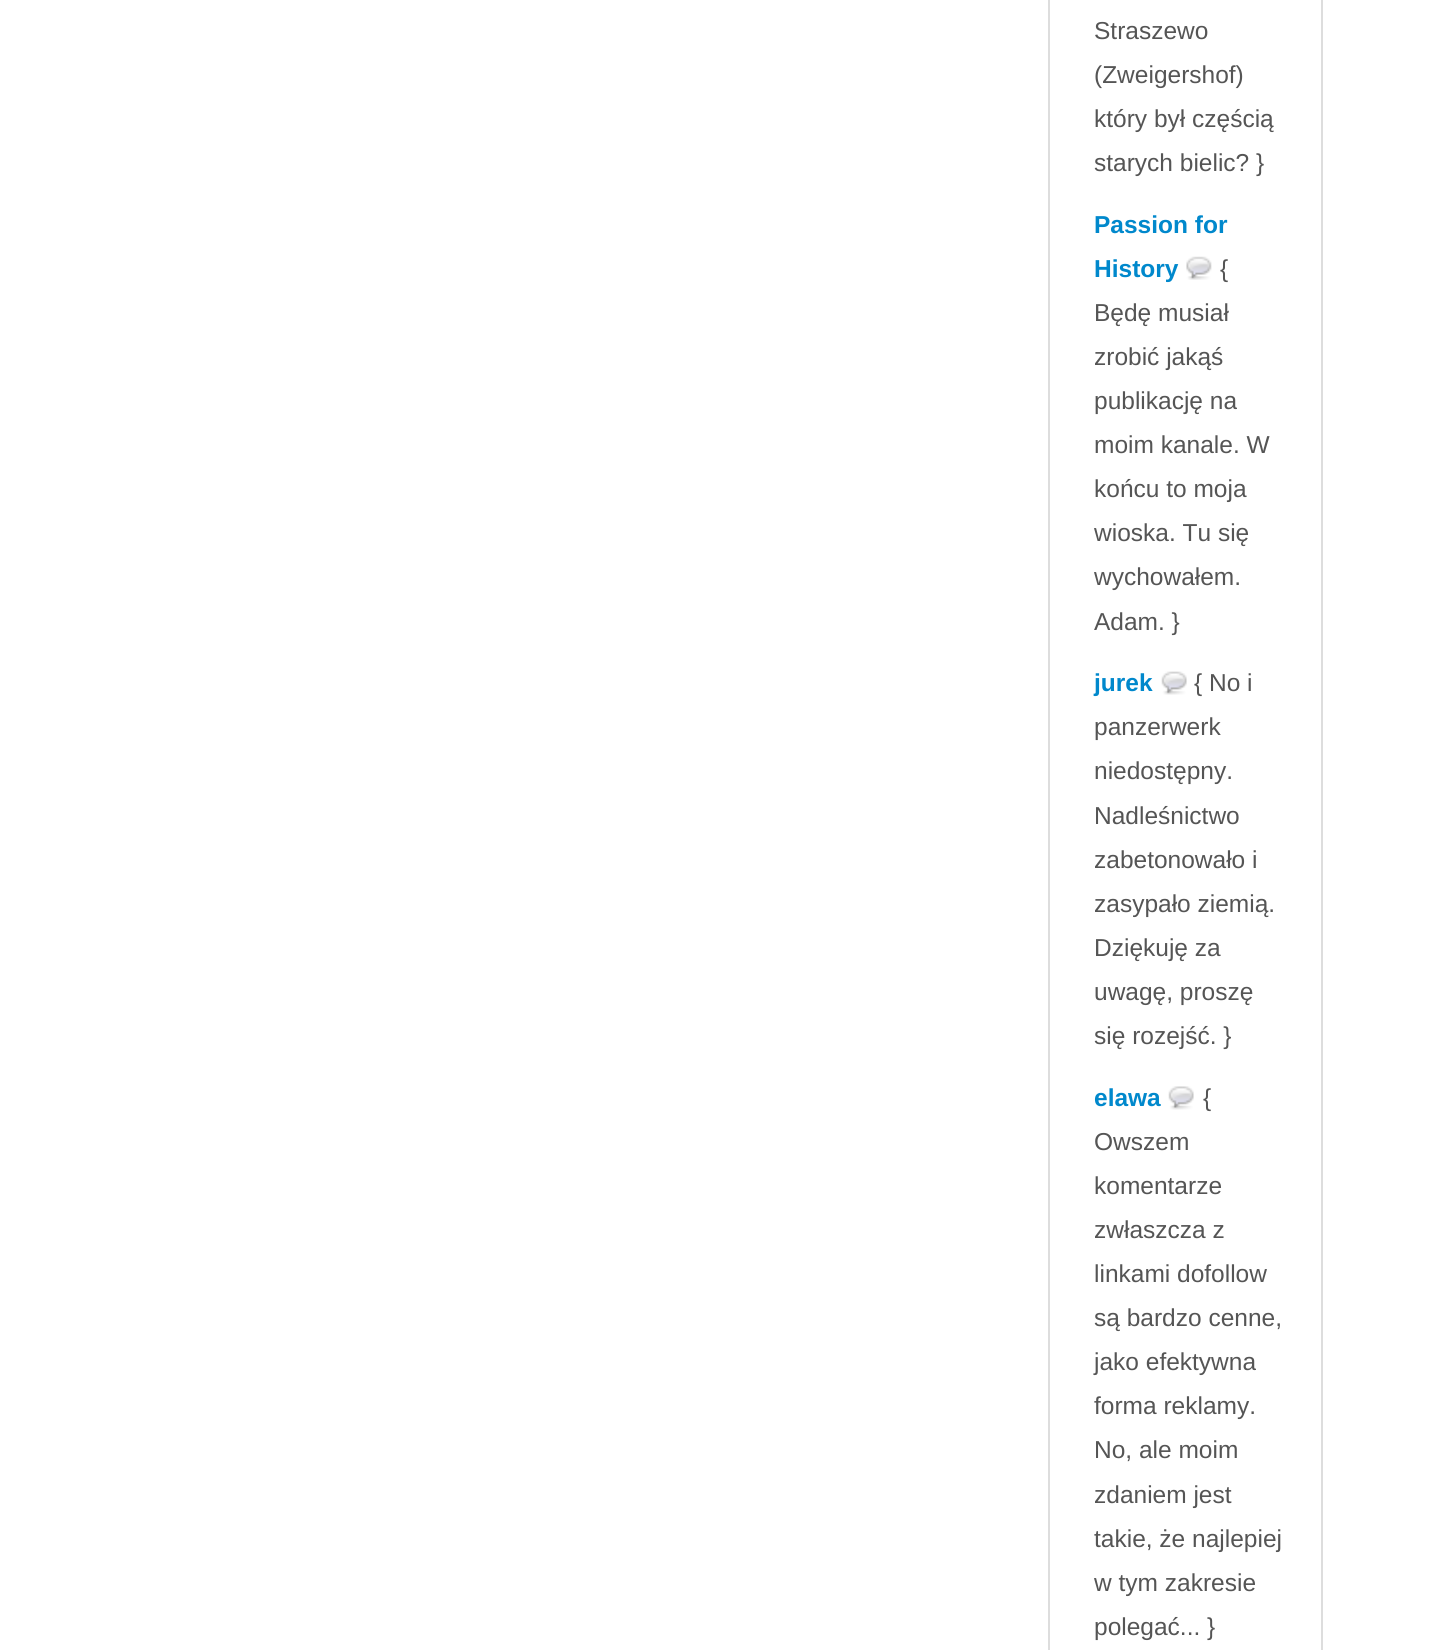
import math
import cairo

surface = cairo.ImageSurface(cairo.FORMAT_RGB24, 1448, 1650)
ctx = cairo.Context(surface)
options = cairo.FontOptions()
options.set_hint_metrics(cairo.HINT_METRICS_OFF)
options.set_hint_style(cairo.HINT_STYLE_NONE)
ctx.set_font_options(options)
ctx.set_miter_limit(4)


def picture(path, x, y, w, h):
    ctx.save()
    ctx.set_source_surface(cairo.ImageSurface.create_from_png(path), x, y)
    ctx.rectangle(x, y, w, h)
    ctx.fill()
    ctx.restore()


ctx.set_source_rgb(1, 1, 1)
ctx.paint()
ctx.rectangle(1049, -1, 273, 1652)
ctx.set_source_rgb(0.867, 0.867, 0.867)
ctx.stroke()
ctx.select_font_face("Liberation Sans")
ctx.set_font_size(24.5)
ctx.set_source_rgb(0.333, 0.333, 0.333)
ctx.move_to(1094, 39)
ctx.show_text("Straszewo")
ctx.move_to(1094, 83)
ctx.show_text("(Zweigershof)")
ctx.move_to(1094, 127)
ctx.show_text("który był częścią")
ctx.move_to(1094, 171)
ctx.show_text("starych bielic? }")
ctx.select_font_face("Liberation Sans", cairo.FONT_SLANT_NORMAL, cairo.FONT_WEIGHT_BOLD)
ctx.set_source_rgb(0, 0.533, 0.8)
ctx.move_to(1094, 233)
ctx.show_text("Passion for")
ctx.move_to(1094, 277)
ctx.show_text("History")
picture("img1.png", 1186, 256, 26, 24)
ctx.select_font_face("Liberation Sans")
ctx.set_source_rgb(0.333, 0.333, 0.333)
ctx.move_to(1220, 277)
ctx.show_text("{")
ctx.move_to(1094, 321)
ctx.show_text("Będę musiał")
ctx.move_to(1094, 365)
ctx.show_text("zrobić jakąś")
ctx.move_to(1094, 409)
ctx.show_text("publikację na")
ctx.move_to(1094, 453)
ctx.show_text("moim kanale. W")
ctx.move_to(1094, 497)
ctx.show_text("końcu to moja")
ctx.move_to(1094, 541)
ctx.show_text("wioska. Tu się")
ctx.move_to(1094, 585)
ctx.show_text("wychowałem.")
ctx.move_to(1094, 630)
ctx.show_text("Adam. }")
ctx.select_font_face("Liberation Sans", cairo.FONT_SLANT_NORMAL, cairo.FONT_WEIGHT_BOLD)
ctx.set_source_rgb(0, 0.533, 0.8)
ctx.move_to(1094, 691)
ctx.show_text("jurek")
picture("img2.png", 1161, 671, 26, 24)
ctx.select_font_face("Liberation Sans")
ctx.set_source_rgb(0.333, 0.333, 0.333)
ctx.move_to(1194, 691)
ctx.show_text("{ No i")
ctx.move_to(1094, 735)
ctx.show_text("panzerwerk")
ctx.move_to(1094, 779)
ctx.show_text("niedostępny.")
ctx.move_to(1094, 824)
ctx.show_text("Nadleśnictwo")
ctx.move_to(1094, 868)
ctx.show_text("zabetonowało i")
ctx.move_to(1094, 912)
ctx.show_text("zasypało ziemią.")
ctx.move_to(1094, 956)
ctx.show_text("Dziękuję za")
ctx.move_to(1094, 1000)
ctx.show_text("uwagę, proszę")
ctx.move_to(1094, 1044)
ctx.show_text("się rozejść. }")
ctx.select_font_face("Liberation Sans", cairo.FONT_SLANT_NORMAL, cairo.FONT_WEIGHT_BOLD)
ctx.set_source_rgb(0, 0.533, 0.8)
ctx.move_to(1094, 1106)
ctx.show_text("elawa")
picture("img3.png", 1168, 1086, 26, 24)
ctx.select_font_face("Liberation Sans")
ctx.set_source_rgb(0.333, 0.333, 0.333)
ctx.move_to(1203, 1106)
ctx.show_text("{")
ctx.move_to(1094, 1150)
ctx.show_text("Owszem")
ctx.move_to(1094, 1194)
ctx.show_text("komentarze")
ctx.move_to(1094, 1238)
ctx.show_text("zwłaszcza z")
ctx.move_to(1094, 1282)
ctx.show_text("linkami dofollow")
ctx.move_to(1094, 1326)
ctx.show_text("są bardzo cenne,")
ctx.move_to(1094, 1370)
ctx.show_text("jako efektywna")
ctx.move_to(1094, 1414)
ctx.show_text("forma reklamy.")
ctx.move_to(1094, 1458)
ctx.show_text("No, ale moim")
ctx.move_to(1094, 1503)
ctx.show_text("zdaniem jest")
ctx.move_to(1094, 1547)
ctx.show_text("takie, że najlepiej")
ctx.move_to(1094, 1591)
ctx.show_text("w tym zakresie")
ctx.move_to(1094, 1635)
ctx.show_text("polegać... }")
surface.write_to_png("page.png")
